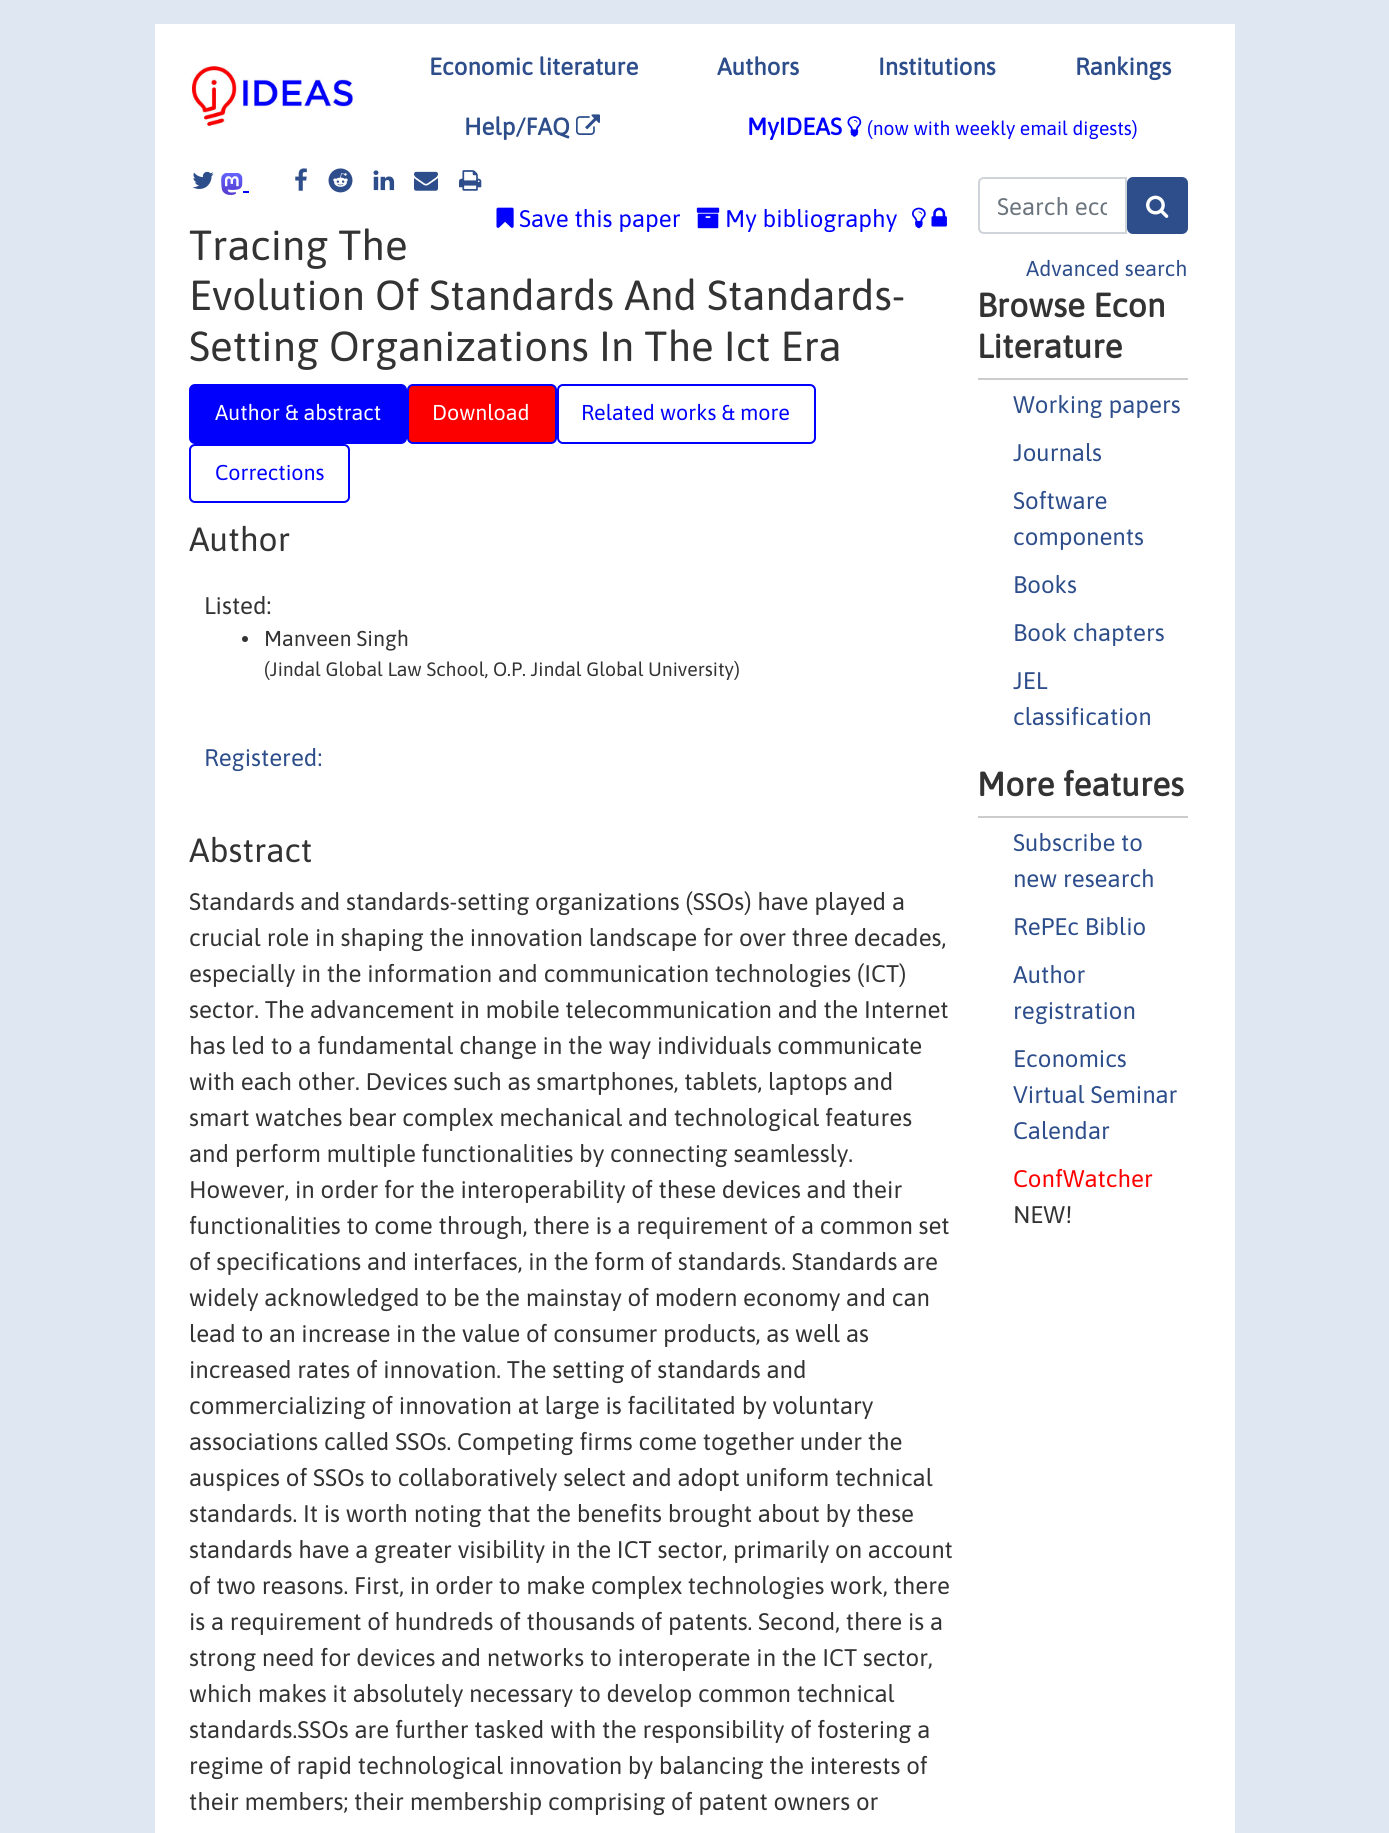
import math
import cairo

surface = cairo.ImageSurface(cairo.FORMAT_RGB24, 1389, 1833)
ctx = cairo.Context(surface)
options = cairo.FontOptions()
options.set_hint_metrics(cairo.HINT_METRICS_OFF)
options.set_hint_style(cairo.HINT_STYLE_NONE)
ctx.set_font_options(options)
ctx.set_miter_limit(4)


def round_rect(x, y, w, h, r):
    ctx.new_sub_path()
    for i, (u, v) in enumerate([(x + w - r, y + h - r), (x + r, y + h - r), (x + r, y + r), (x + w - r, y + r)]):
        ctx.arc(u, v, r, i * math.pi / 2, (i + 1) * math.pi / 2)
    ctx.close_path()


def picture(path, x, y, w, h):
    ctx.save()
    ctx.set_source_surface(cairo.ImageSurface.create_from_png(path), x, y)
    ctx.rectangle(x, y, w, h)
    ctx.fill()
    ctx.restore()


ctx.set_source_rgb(0.875, 0.906, 0.949)
ctx.paint()
ctx.set_source_rgb(1, 1, 1)
ctx.rectangle(155, 24, 1080, 1809)
ctx.fill()
picture("img1.png", 190, 66, 164, 61)
ctx.select_font_face("Asap", cairo.FONT_SLANT_NORMAL, cairo.FONT_WEIGHT_BOLD)
ctx.set_font_size(24)
ctx.set_source_rgb(0.176, 0.306, 0.545)
ctx.move_to(429, 75)
ctx.show_text("Economic literature")
ctx.move_to(717, 75)
ctx.show_text("Authors")
ctx.move_to(878, 75)
ctx.show_text("Institutions")
ctx.move_to(1075, 75)
ctx.show_text("Rankings")
ctx.move_to(464, 135)
ctx.show_text("Help/FAQ")
picture("img2.png", 576, 114, 24, 21)
ctx.set_source_rgb(0, 0, 1)
ctx.move_to(747, 135)
ctx.show_text("MyIDEAS")
picture("img3.png", 847, 116, 15, 21)
ctx.select_font_face("Asap")
ctx.set_font_size(19.25)
ctx.move_to(867, 135)
ctx.show_text("(now with weekly email digests)")
picture("img4.png", 192, 171, 22, 18)
picture("img5.png", 221, 173, 22, 22)
ctx.rectangle(243, 191, 6, 2)
ctx.fill()
picture("img6.png", 295, 168, 12, 23)
picture("img7.png", 328, 168, 25, 25)
picture("img8.png", 373, 170, 22, 21)
picture("img9.png", 414, 171, 24, 20)
picture("img10.png", 459, 170, 23, 21)
picture("img11.png", 496, 207, 18, 21)
ctx.set_font_size(24)
ctx.move_to(519, 227)
ctx.show_text("Save this paper")
picture("img12.png", 696, 207, 24, 22)
ctx.move_to(725, 227)
ctx.show_text("My bibliography")
picture("img13.png", 912, 207, 14, 22)
picture("img14.png", 931, 207, 16, 20)
ctx.set_font_size(42)
ctx.set_source_rgb(0.2, 0.2, 0.2)
ctx.move_to(189, 260)
ctx.show_text("Tracing The")
ctx.move_to(189, 310)
ctx.show_text("Evolution Of Standards And Standards-")
ctx.move_to(189, 361)
ctx.show_text("Setting Organizations In The Ict Era")
ctx.set_source_rgb(0, 0, 0.988)
round_rect(190, 385, 216, 58, 5)
ctx.fill_preserve()
ctx.stroke()
ctx.set_font_size(21.5)
ctx.set_source_rgb(1, 1, 1)
ctx.move_to(215, 420)
ctx.show_text("Author & abstract")
ctx.set_source_rgb(0.988, 0, 0)
round_rect(408, 385, 148, 58, 5)
ctx.fill_preserve()
ctx.set_source_rgb(0, 0, 0.988)
ctx.stroke()
ctx.set_source_rgb(1, 1, 1)
ctx.move_to(432, 420)
ctx.show_text("Download")
round_rect(558, 385, 257, 58, 5)
ctx.set_source_rgb(0, 0, 0.988)
ctx.stroke()
ctx.set_source_rgb(0, 0, 1)
ctx.move_to(581, 420)
ctx.show_text("Related works & more")
round_rect(190, 445, 159, 57, 5)
ctx.set_source_rgb(0, 0, 0.988)
ctx.stroke()
ctx.set_source_rgb(0, 0, 1)
ctx.move_to(215, 480)
ctx.show_text("Corrections")
ctx.set_font_size(33.5)
ctx.set_source_rgb(0.2, 0.2, 0.2)
ctx.move_to(189, 551)
ctx.show_text("Author")
ctx.set_font_size(24)
ctx.move_to(204, 614)
ctx.show_text("Listed:")
ctx.new_path()
ctx.arc(245, 639, 3, 0, 2 * math.pi)
ctx.fill()
ctx.set_font_size(21.5)
ctx.move_to(264, 646)
ctx.show_text("Manveen Singh")
ctx.set_font_size(19.4)
ctx.move_to(264, 676)
ctx.show_text("(Jindal Global Law School, O.P. Jindal Global University)")
ctx.set_font_size(24)
ctx.set_source_rgb(0.176, 0.306, 0.545)
ctx.move_to(204, 766)
ctx.show_text("Registered:")
ctx.set_font_size(33.5)
ctx.set_source_rgb(0.2, 0.2, 0.2)
ctx.move_to(189, 862)
ctx.show_text("Abstract")
ctx.set_font_size(24)
ctx.move_to(189, 910)
ctx.show_text("Standards and standards-setting organizations (SSOs) have played a")
ctx.move_to(189, 946)
ctx.show_text("crucial role in shaping the innovation landscape for over three decades,")
ctx.move_to(189, 982)
ctx.show_text("especially in the information and communication technologies (ICT)")
ctx.move_to(189, 1018)
ctx.show_text("sector. The advancement in mobile telecommunication and the Internet")
ctx.move_to(189, 1054)
ctx.show_text("has led to a fundamental change in the way individuals communicate")
ctx.move_to(189, 1090)
ctx.show_text("with each other. Devices such as smartphones, tablets, laptops and")
ctx.move_to(189, 1126)
ctx.show_text("smart watches bear complex mechanical and technological features")
ctx.move_to(189, 1162)
ctx.show_text("and perform multiple functionalities by connecting seamlessly.")
ctx.move_to(189, 1198)
ctx.show_text("However, in order for the interoperability of these devices and their")
ctx.move_to(189, 1234)
ctx.show_text("functionalities to come through, there is a requirement of a common set")
ctx.move_to(189, 1270)
ctx.show_text("of specifications and interfaces, in the form of standards. Standards are")
ctx.move_to(189, 1306)
ctx.show_text("widely acknowledged to be the mainstay of modern economy and can")
ctx.move_to(189, 1342)
ctx.show_text("lead to an increase in the value of consumer products, as well as")
ctx.move_to(189, 1378)
ctx.show_text("increased rates of innovation. The setting of standards and")
ctx.move_to(189, 1414)
ctx.show_text("commercializing of innovation at large is facilitated by voluntary")
ctx.move_to(189, 1450)
ctx.show_text("associations called SSOs. Competing firms come together under the")
ctx.move_to(189, 1486)
ctx.show_text("auspices of SSOs to collaboratively select and adopt uniform technical")
ctx.move_to(189, 1522)
ctx.show_text("standards. It is worth noting that the benefits brought about by these")
ctx.move_to(189, 1558)
ctx.show_text("standards have a greater visibility in the ICT sector, primarily on account")
ctx.move_to(189, 1594)
ctx.show_text("of two reasons. First, in order to make complex technologies work, there")
ctx.move_to(189, 1630)
ctx.show_text("is a requirement of hundreds of thousands of patents. Second, there is a")
ctx.move_to(189, 1666)
ctx.show_text("strong need for devices and networks to interoperate in the ICT sector,")
ctx.move_to(189, 1702)
ctx.show_text("which makes it absolutely necessary to develop common technical")
ctx.move_to(189, 1738)
ctx.show_text("standards.SSOs are further tasked with the responsibility of fostering a")
ctx.move_to(189, 1774)
ctx.show_text("regime of rapid technological innovation by balancing the interests of")
ctx.move_to(189, 1810)
ctx.show_text("their members; their membership comprising of patent owners or")
ctx.new_path()
ctx.move_to(984, 178)
ctx.line_to(1126, 178)
ctx.line_to(1126, 233)
ctx.line_to(984, 233)
ctx.curve_to(981, 233, 979, 231, 979, 228)
ctx.line_to(979, 183)
ctx.curve_to(979, 180, 981, 178, 984, 178)
ctx.close_path()
ctx.set_source_rgb(0.808, 0.831, 0.855)
ctx.stroke()
ctx.save()
ctx.rectangle(998, 192, 109, 27)
ctx.clip()
ctx.set_source_rgb(0.424, 0.459, 0.49)
ctx.move_to(997, 215)
ctx.show_text("Search eco")
ctx.restore()
ctx.set_source_rgb(0.176, 0.306, 0.545)
round_rect(1127, 177, 61, 57, 6)
ctx.fill()
picture("img15.png", 1146, 195, 23, 23)
ctx.set_font_size(21.5)
ctx.move_to(1026, 276)
ctx.show_text("Advanced search")
ctx.select_font_face("Asap", cairo.FONT_SLANT_NORMAL, cairo.FONT_WEIGHT_BOLD)
ctx.set_font_size(33.5)
ctx.set_source_rgb(0.2, 0.2, 0.2)
ctx.move_to(977, 317)
ctx.show_text("Browse Econ")
ctx.move_to(977, 358)
ctx.show_text("Literature")
ctx.set_source_rgb(0.8, 0.8, 0.8)
ctx.rectangle(978, 378, 210, 2)
ctx.fill()
ctx.select_font_face("Asap")
ctx.set_font_size(24)
ctx.set_source_rgb(0.176, 0.306, 0.545)
ctx.move_to(1013, 413)
ctx.show_text("Working papers")
ctx.move_to(1013, 461)
ctx.show_text("Journals")
ctx.move_to(1013, 509)
ctx.show_text("Software")
ctx.move_to(1013, 545)
ctx.show_text("components")
ctx.move_to(1013, 593)
ctx.show_text("Books")
ctx.move_to(1013, 641)
ctx.show_text("Book chapters")
ctx.move_to(1013, 689)
ctx.show_text("JEL")
ctx.move_to(1013, 725)
ctx.show_text("classification")
ctx.select_font_face("Asap", cairo.FONT_SLANT_NORMAL, cairo.FONT_WEIGHT_BOLD)
ctx.set_font_size(33.5)
ctx.set_source_rgb(0.2, 0.2, 0.2)
ctx.move_to(977, 796)
ctx.show_text("More features")
ctx.set_source_rgb(0.8, 0.8, 0.8)
ctx.rectangle(978, 816, 210, 2)
ctx.fill()
ctx.select_font_face("Asap")
ctx.set_font_size(24)
ctx.set_source_rgb(0.176, 0.306, 0.545)
ctx.move_to(1013, 851)
ctx.show_text("Subscribe to")
ctx.move_to(1013, 887)
ctx.show_text("new research")
ctx.move_to(1013, 935)
ctx.show_text("RePEc Biblio")
ctx.move_to(1013, 983)
ctx.show_text("Author")
ctx.move_to(1013, 1019)
ctx.show_text("registration")
ctx.move_to(1013, 1067)
ctx.show_text("Economics")
ctx.move_to(1013, 1103)
ctx.show_text("Virtual Seminar")
ctx.move_to(1013, 1139)
ctx.show_text("Calendar")
ctx.set_source_rgb(1, 0, 0)
ctx.move_to(1013, 1187)
ctx.show_text("ConfWatcher")
ctx.set_source_rgb(0.2, 0.2, 0.2)
ctx.move_to(1013, 1223)
ctx.show_text("NEW!")
surface.write_to_png("page.png")
